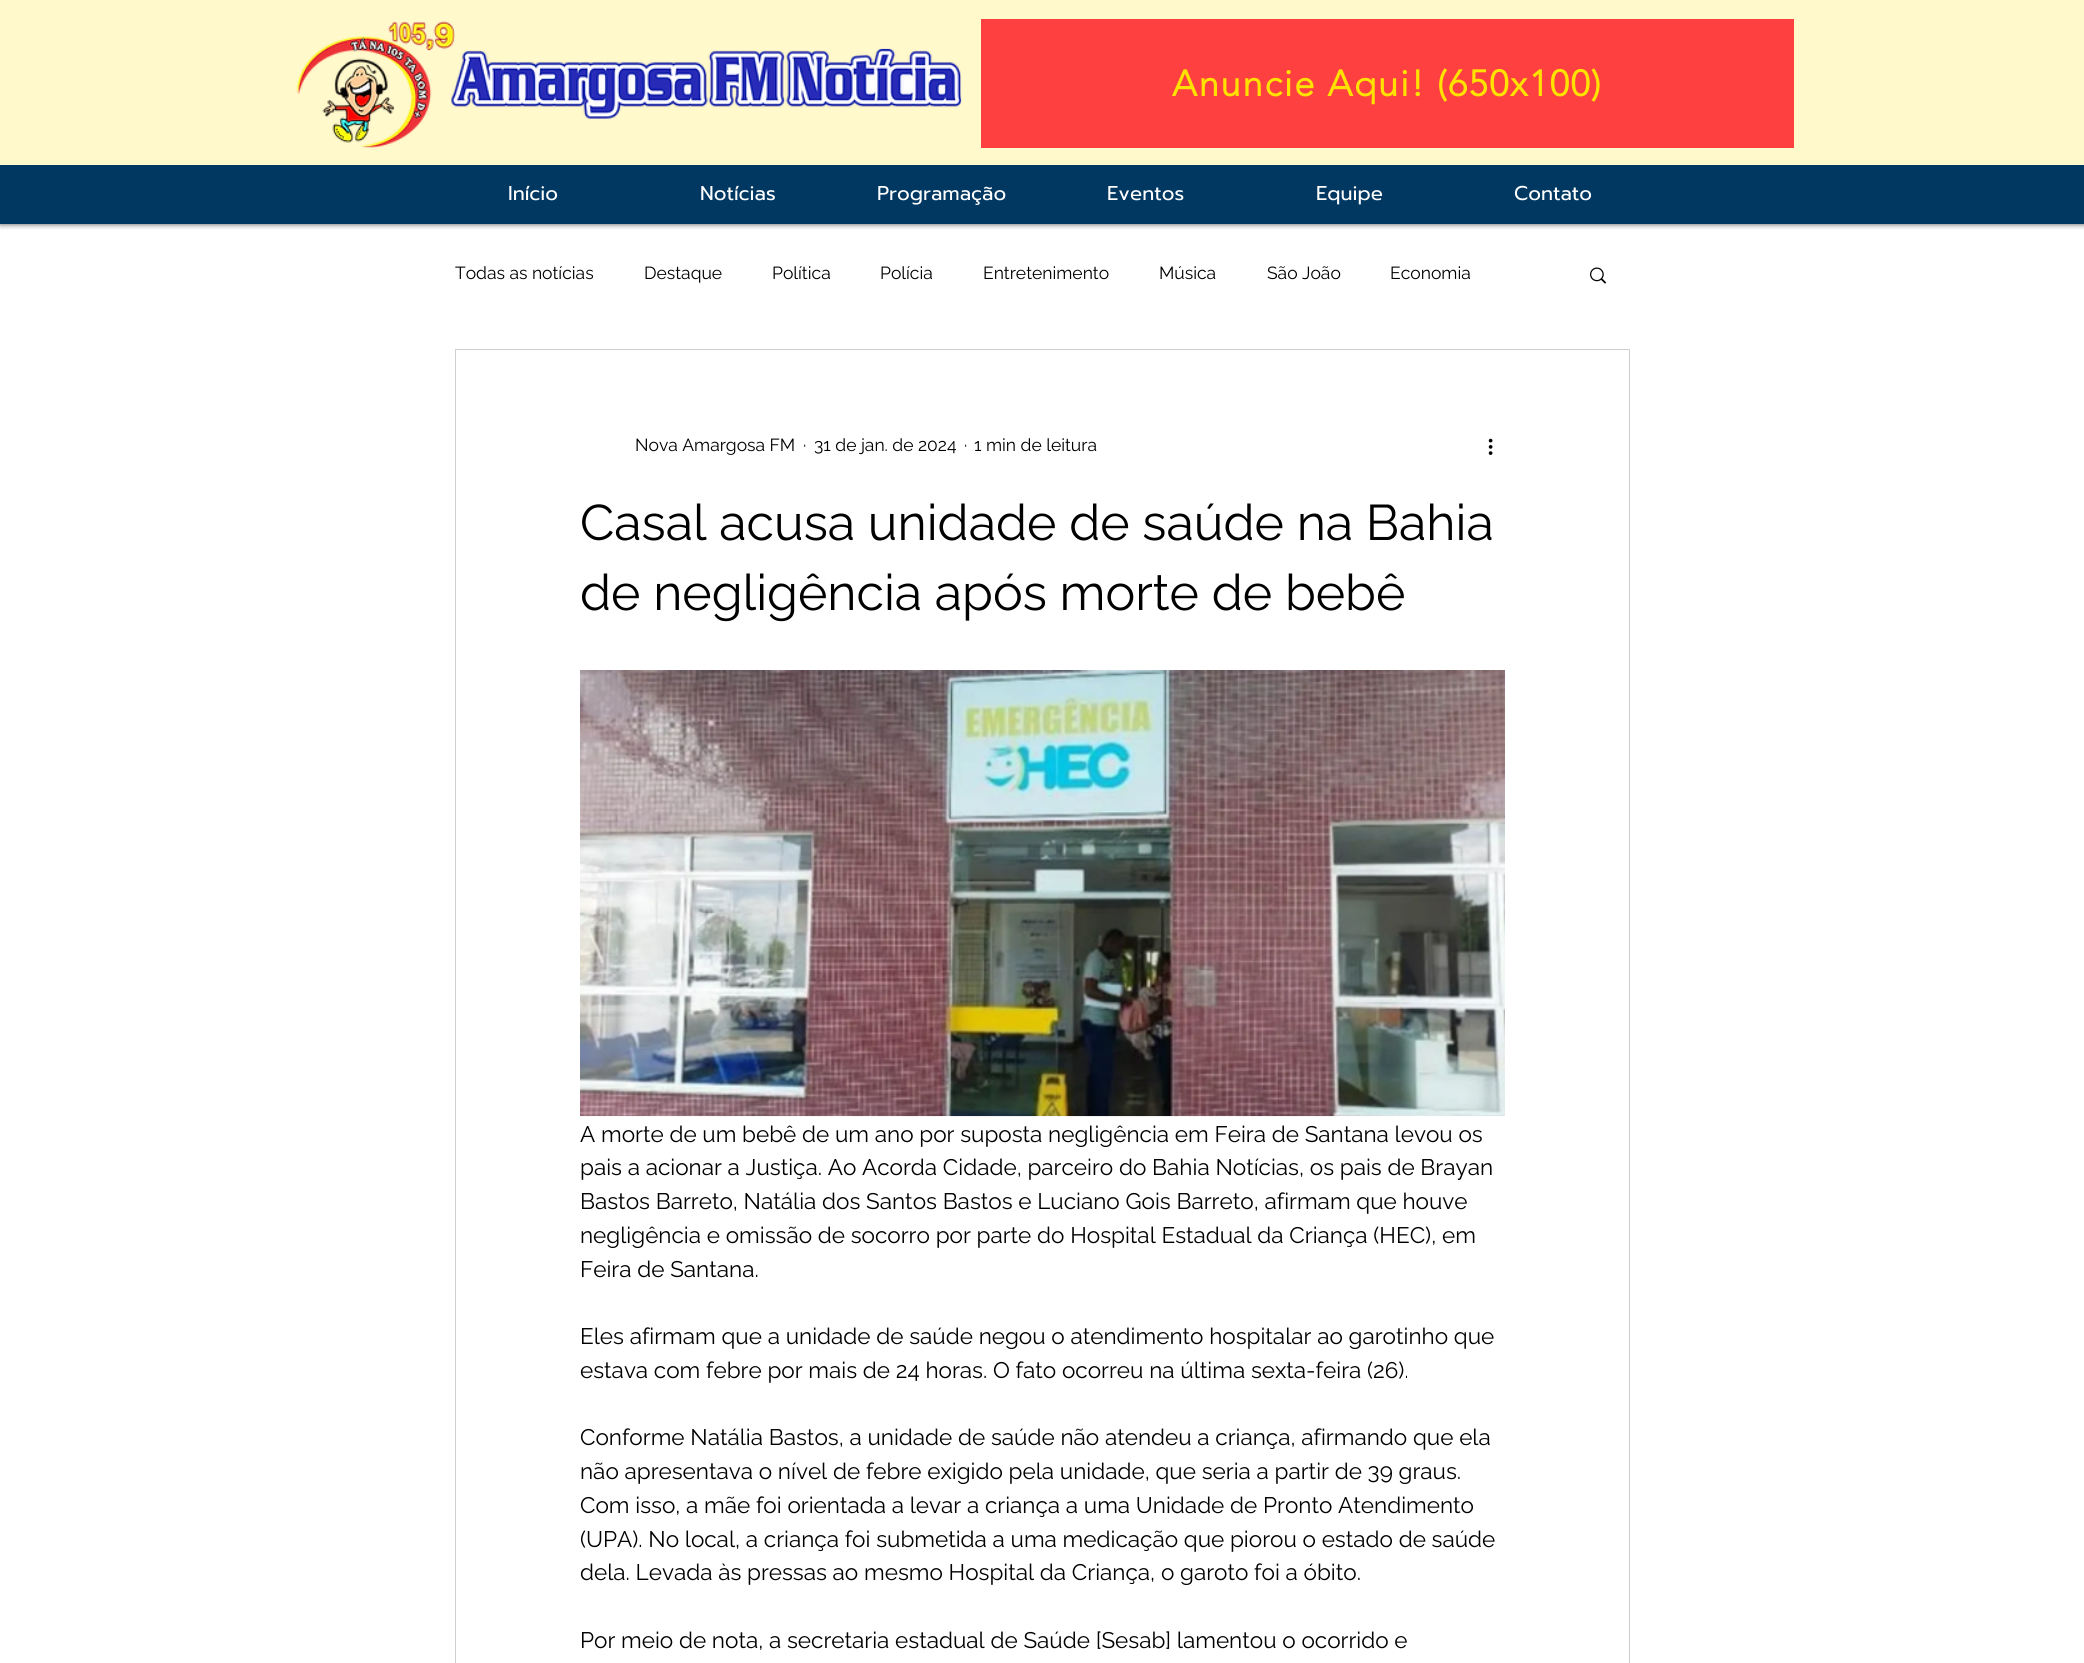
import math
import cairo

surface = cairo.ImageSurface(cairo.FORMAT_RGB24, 2084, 1663)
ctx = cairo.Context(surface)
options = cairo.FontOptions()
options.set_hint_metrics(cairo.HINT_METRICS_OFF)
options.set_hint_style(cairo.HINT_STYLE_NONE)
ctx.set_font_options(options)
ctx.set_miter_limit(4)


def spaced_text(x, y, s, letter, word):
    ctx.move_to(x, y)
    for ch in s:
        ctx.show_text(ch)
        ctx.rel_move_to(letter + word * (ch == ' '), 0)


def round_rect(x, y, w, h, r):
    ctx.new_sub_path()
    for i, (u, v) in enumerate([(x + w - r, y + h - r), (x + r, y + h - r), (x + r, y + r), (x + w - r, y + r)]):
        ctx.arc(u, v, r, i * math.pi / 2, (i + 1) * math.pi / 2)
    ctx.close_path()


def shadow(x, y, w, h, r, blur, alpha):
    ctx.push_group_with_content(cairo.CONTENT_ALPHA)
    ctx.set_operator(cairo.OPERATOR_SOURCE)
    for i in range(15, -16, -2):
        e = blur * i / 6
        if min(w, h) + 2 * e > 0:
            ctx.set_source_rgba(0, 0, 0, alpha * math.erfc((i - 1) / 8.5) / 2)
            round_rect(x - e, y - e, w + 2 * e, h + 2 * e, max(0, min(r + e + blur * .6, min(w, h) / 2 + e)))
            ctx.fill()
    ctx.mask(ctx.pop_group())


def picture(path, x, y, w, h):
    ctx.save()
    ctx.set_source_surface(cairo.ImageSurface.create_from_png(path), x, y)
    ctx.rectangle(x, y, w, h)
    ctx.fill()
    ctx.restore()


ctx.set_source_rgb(1, 1, 1)
ctx.paint()
ctx.save()
ctx.rectangle(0, 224, 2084, 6)
ctx.clip()
ctx.set_source_rgb(0, 0, 0)
shadow(0, 0, 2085, 224, 0, 3, 0.7)
ctx.restore()
ctx.set_source_rgba(1, 0.886, 0, 0.2)
ctx.rectangle(0, 0, 2084, 165)
ctx.fill()
picture("img2.png", 451, 48, 511, 71)
picture("img1.png", 296, 21, 159, 127)
ctx.set_source_rgb(1, 0.251, 0.251)
ctx.rectangle(981, 19, 813, 129)
ctx.fill()
ctx.select_font_face("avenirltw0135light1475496", cairo.FONT_SLANT_NORMAL, cairo.FONT_WEIGHT_BOLD)
ctx.set_font_size(36.25)
ctx.set_source_rgb(1, 0.886, 0)
spaced_text(1172, 96, "Anuncie Aqui! (650x100)", 1.8, 0)
ctx.set_source_rgb(0, 0.22, 0.384)
ctx.rectangle(0, 165, 2084, 59)
ctx.fill()
ctx.select_font_face("Prompt")
ctx.set_font_size(20)
ctx.set_source_rgb(1, 1, 1)
ctx.move_to(508, 200)
ctx.show_text("Início")
ctx.move_to(700, 200)
ctx.show_text("Notícias")
ctx.move_to(877, 200)
ctx.show_text("Programação")
ctx.move_to(1107, 200)
ctx.show_text("Eventos")
ctx.move_to(1316, 200)
ctx.show_text("Equipe")
ctx.move_to(1514, 200)
ctx.show_text("Contato")
ctx.select_font_face("Raleway")
ctx.set_font_size(17.5)
ctx.set_source_rgb(0, 0, 0)
ctx.move_to(455, 279)
ctx.show_text("Todas as notícias")
ctx.move_to(644, 279)
ctx.show_text("Destaque")
ctx.move_to(772, 279)
ctx.show_text("Política")
ctx.move_to(880, 279)
ctx.show_text("Polícia")
ctx.move_to(983, 279)
ctx.show_text("Entretenimento")
ctx.move_to(1159, 279)
ctx.show_text("Música")
ctx.move_to(1267, 279)
ctx.show_text("São João")
ctx.move_to(1390, 279)
ctx.show_text("Economia")
picture("img3.png", 1590, 267, 17, 17)
ctx.rectangle(455.5, 349.5, 1174, 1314)
ctx.set_source_rgb(0.812, 0.812, 0.812)
ctx.set_line_width(1)
ctx.stroke()
ctx.set_source_rgb(0, 0, 0)
ctx.move_to(635, 451)
ctx.show_text("Nova Amargosa FM")
ctx.move_to(803, 451)
ctx.show_text("·")
ctx.move_to(814, 451)
ctx.show_text("31 de jan. de 2024")
ctx.move_to(964, 451)
ctx.show_text("·")
ctx.move_to(974, 451)
ctx.show_text("1 min de leitura")
picture("img4.png", 1488, 438, 5, 17)
ctx.set_font_size(50)
ctx.move_to(580, 540)
ctx.show_text("Casal acusa unidade de saúde na Bahia")
ctx.move_to(580, 610)
ctx.show_text("de negligência após morte de bebê")
picture("img5.png", 580, 670, 925, 447)
ctx.set_font_size(22.5)
ctx.move_to(580, 1142)
ctx.show_text("A morte de um bebê de um ano por suposta negligência em Feira de Santana levou os")
ctx.move_to(580, 1175)
ctx.show_text("pais a acionar a Justiça. Ao Acorda Cidade, parceiro do Bahia Notícias, os pais de Brayan")
ctx.move_to(580, 1209)
ctx.show_text("Bastos Barreto, Natália dos Santos Bastos e Luciano Gois Barreto, afirmam que houve")
ctx.move_to(580, 1243)
ctx.show_text("negligência e omissão de socorro por parte do Hospital Estadual da Criança (HEC), em")
ctx.move_to(580, 1277)
ctx.show_text("Feira de Santana.")
ctx.move_to(580, 1344)
ctx.show_text("Eles afirmam que a unidade de saúde negou o atendimento hospitalar ao garotinho que")
ctx.move_to(580, 1378)
ctx.show_text("estava com febre por mais de 24 horas. O fato ocorreu na última sexta-feira (26).")
ctx.move_to(580, 1445)
ctx.show_text("Conforme Natália Bastos, a unidade de saúde não atendeu a criança, afirmando que ela")
ctx.move_to(580, 1479)
ctx.show_text("não apresentava o nível de febre exigido pela unidade, que seria a partir de 39 graus.")
ctx.move_to(580, 1513)
ctx.show_text("Com isso, a mãe foi orientada a levar a criança a uma Unidade de Pronto Atendimento")
ctx.move_to(580, 1547)
ctx.show_text("(UPA). No local, a criança foi submetida a uma medicação que piorou o estado de saúde")
ctx.move_to(580, 1580)
ctx.show_text("dela. Levada às pressas ao mesmo Hospital da Criança, o garoto foi a óbito.")
ctx.move_to(580, 1648)
ctx.show_text("Por meio de nota, a secretaria estadual de Saúde [Sesab] lamentou o ocorrido e")
surface.write_to_png("page.png")
